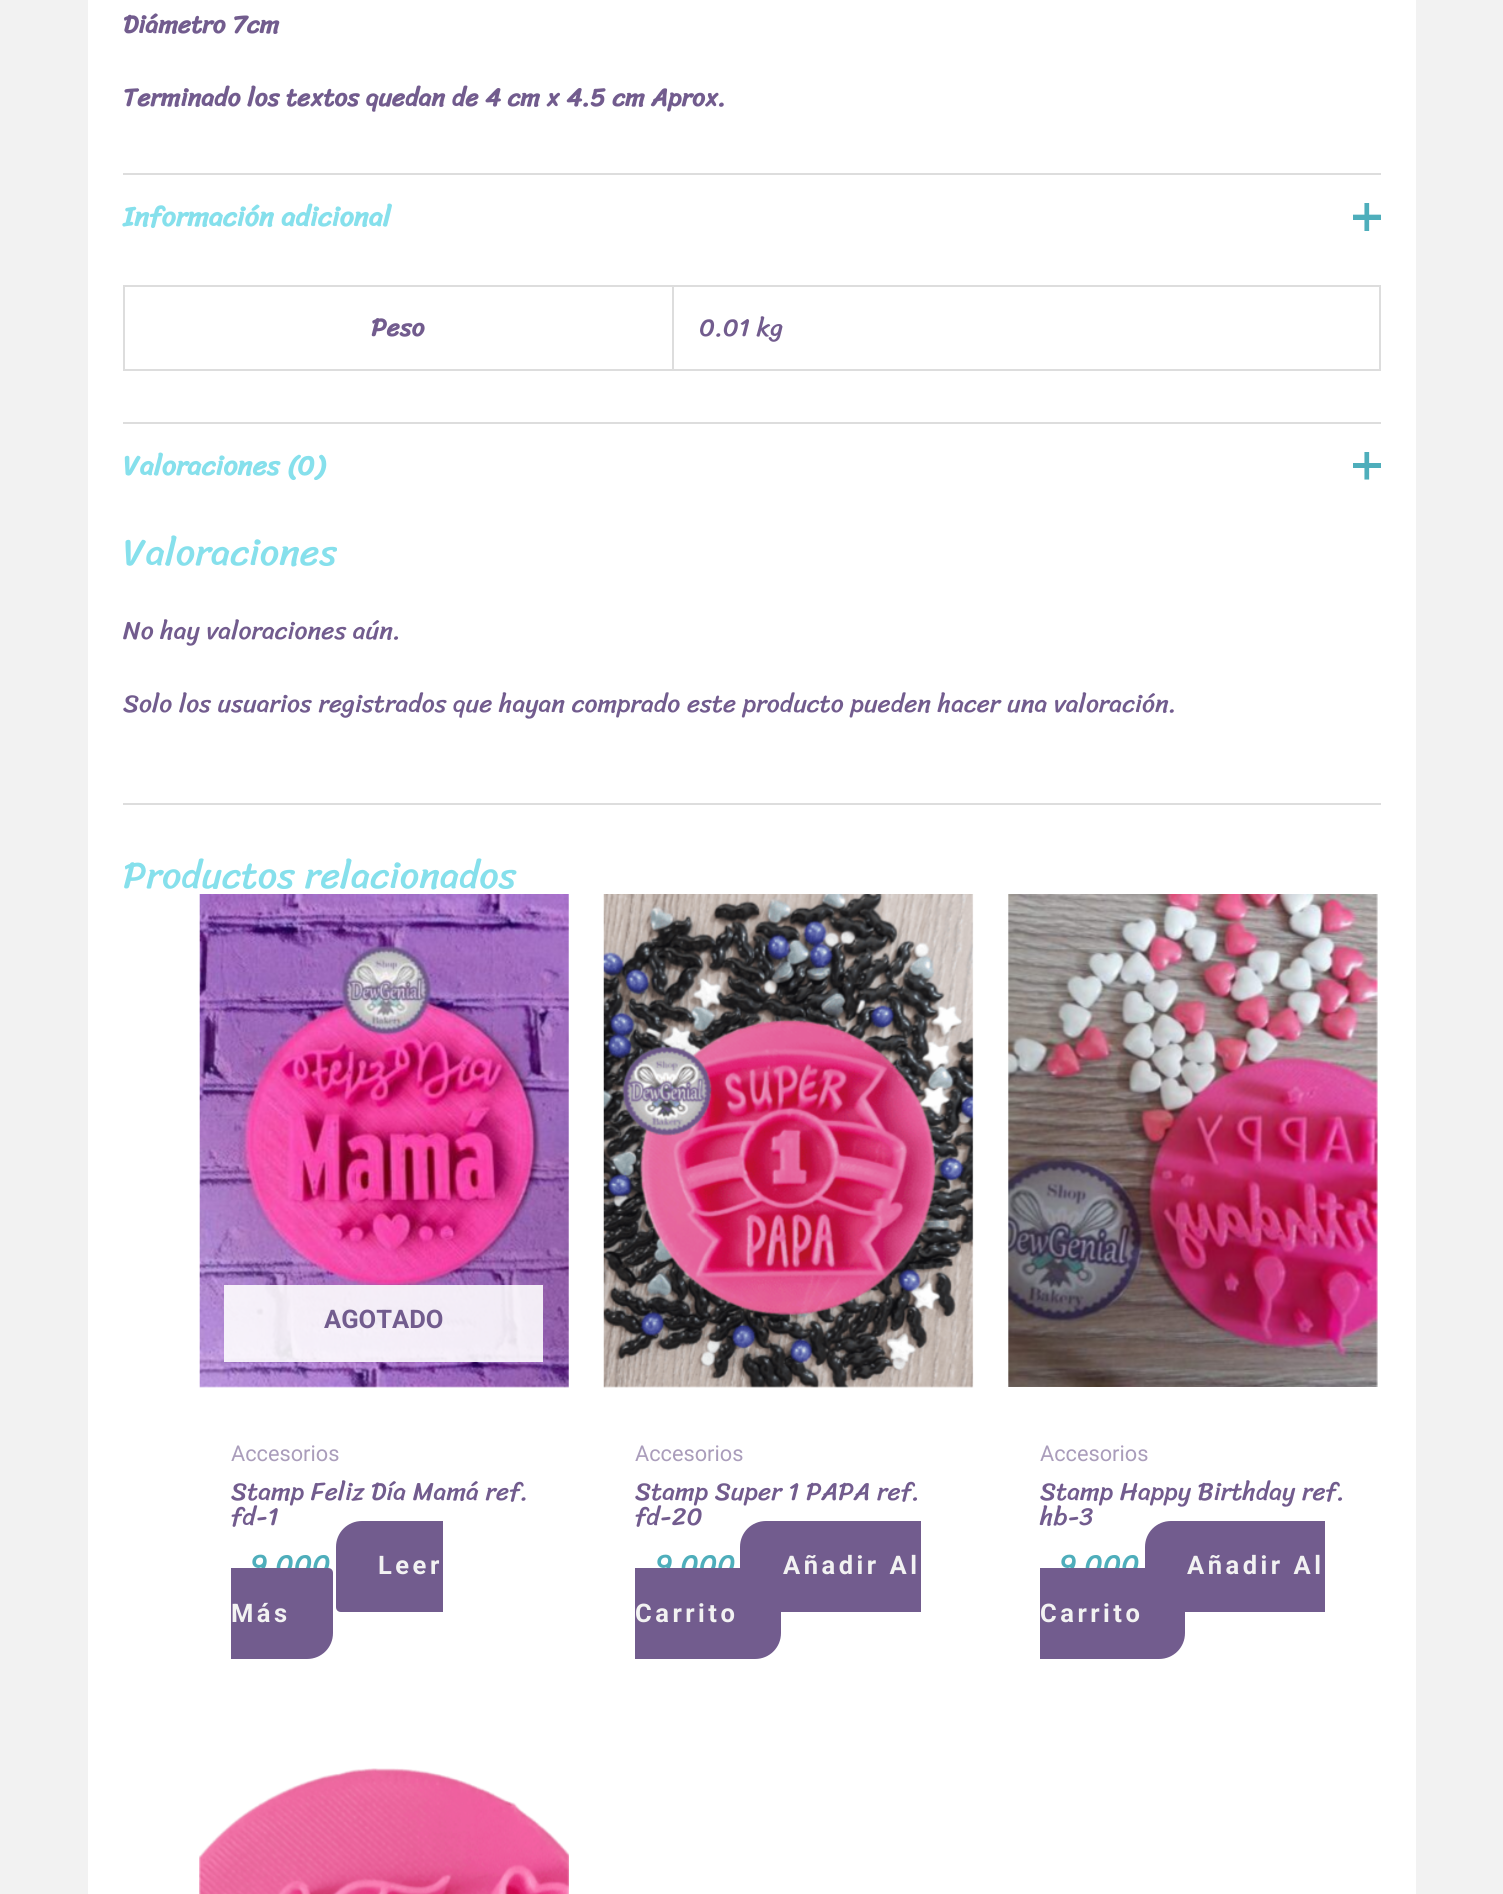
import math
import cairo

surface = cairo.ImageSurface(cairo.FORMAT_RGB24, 1503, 1894)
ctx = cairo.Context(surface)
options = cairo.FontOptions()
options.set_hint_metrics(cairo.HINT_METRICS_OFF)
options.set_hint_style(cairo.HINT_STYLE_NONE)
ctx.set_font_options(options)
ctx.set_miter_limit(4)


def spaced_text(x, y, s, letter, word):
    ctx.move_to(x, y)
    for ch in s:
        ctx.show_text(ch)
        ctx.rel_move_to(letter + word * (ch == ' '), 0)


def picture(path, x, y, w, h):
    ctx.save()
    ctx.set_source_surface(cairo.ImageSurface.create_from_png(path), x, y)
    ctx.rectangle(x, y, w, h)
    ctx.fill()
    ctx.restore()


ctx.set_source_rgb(0.949, 0.949, 0.949)
ctx.paint()
ctx.set_source_rgb(1, 1, 1)
ctx.rectangle(88, 0, 1328, 1894)
ctx.fill()
ctx.set_source_rgb(0.867, 0.867, 0.867)
ctx.rectangle(123, 803, 1258, 2)
ctx.fill()
ctx.select_font_face("Sriracha", cairo.FONT_SLANT_NORMAL, cairo.FONT_WEIGHT_BOLD)
ctx.set_font_size(25.55)
ctx.set_source_rgb(0.447, 0.361, 0.557)
ctx.move_to(123, 33)
ctx.show_text("Diámetro 7cm")
ctx.move_to(123, 106)
ctx.show_text("Terminado los textos quedan de 4 cm x 4.5 cm Aprox.")
ctx.set_source_rgb(0.867, 0.867, 0.867)
ctx.rectangle(123, 173, 1258, 2)
ctx.fill()
ctx.set_font_size(28)
ctx.set_source_rgb(0.525, 0.878, 0.922)
ctx.move_to(123, 226)
ctx.show_text("Información adicional")
picture("img1.png", 1353, 203, 28, 28)
ctx.set_source_rgb(0.306, 0.682, 0.733)
ctx.rectangle(1353, 215, 28, 5)
ctx.fill()
ctx.set_source_rgb(0.867, 0.867, 0.867)
ctx.rectangle(123, 285, 1258, 2)
ctx.fill()
ctx.rectangle(123, 285, 2, 86)
ctx.fill()
ctx.rectangle(672, 287, 2, 84)
ctx.fill()
ctx.rectangle(124, 369, 550, 2)
ctx.fill()
ctx.set_font_size(25.55)
ctx.set_source_rgb(0.447, 0.361, 0.557)
ctx.move_to(371, 336)
ctx.show_text("Peso")
ctx.set_source_rgb(0.867, 0.867, 0.867)
ctx.rectangle(1379, 287, 2, 84)
ctx.fill()
ctx.rectangle(674, 369, 707, 2)
ctx.fill()
ctx.select_font_face("Sriracha")
ctx.set_source_rgb(0.447, 0.361, 0.557)
ctx.move_to(699, 336)
ctx.show_text("0.01 kg")
ctx.set_source_rgb(0.867, 0.867, 0.867)
ctx.rectangle(123, 422, 1258, 2)
ctx.fill()
ctx.select_font_face("Sriracha", cairo.FONT_SLANT_NORMAL, cairo.FONT_WEIGHT_BOLD)
ctx.set_font_size(28)
ctx.set_source_rgb(0.525, 0.878, 0.922)
ctx.move_to(123, 475)
ctx.show_text("Valoraciones (0)")
picture("img2.png", 1364, 452, 6, 28)
ctx.set_source_rgb(0.306, 0.682, 0.733)
ctx.rectangle(1353, 463, 28, 5)
ctx.fill()
ctx.select_font_face("Sriracha")
ctx.set_font_size(38.25)
ctx.set_source_rgb(0.525, 0.878, 0.922)
ctx.move_to(123, 565)
ctx.show_text("Valoraciones")
ctx.set_font_size(25.55)
ctx.set_source_rgb(0.447, 0.361, 0.557)
ctx.move_to(123, 639)
ctx.show_text("No hay valoraciones aún.")
ctx.move_to(123, 712)
ctx.show_text("Solo los usuarios registrados que hayan comprado este producto pueden hacer una valoración.")
ctx.set_font_size(38.25)
ctx.set_source_rgb(0.525, 0.878, 0.922)
ctx.move_to(123, 888)
ctx.show_text("Productos relacionados")
picture("img3.png", 199, 894, 370, 494)
ctx.set_source_rgba(1, 1, 1, 0.88)
ctx.rectangle(224, 1285, 319, 77)
ctx.fill()
ctx.select_font_face("Roboto", cairo.FONT_SLANT_NORMAL, cairo.FONT_WEIGHT_BOLD)
ctx.set_font_size(25.55)
ctx.set_source_rgb(0.447, 0.361, 0.557)
ctx.move_to(324, 1328)
ctx.show_text("AGOTADO")
ctx.select_font_face("Roboto")
ctx.set_font_size(21.75)
ctx.set_source_rgb(0.667, 0.616, 0.733)
ctx.move_to(231, 1461)
ctx.show_text("Accesorios")
ctx.select_font_face("Sriracha")
ctx.set_font_size(25.55)
ctx.set_source_rgb(0.447, 0.361, 0.557)
ctx.move_to(231, 1500)
ctx.show_text("Stamp Feliz Día Mamá ref.")
ctx.move_to(231, 1525)
ctx.show_text("fd-1")
ctx.set_font_size(29)
ctx.set_source_rgb(0.306, 0.682, 0.733)
ctx.move_to(250, 1574)
ctx.show_text("9,000")
ctx.set_source_rgb(0.447, 0.361, 0.557)
ctx.new_path()
ctx.move_to(362, 1521)
ctx.line_to(443, 1521)
ctx.line_to(443, 1612)
ctx.line_to(341, 1612)
ctx.curve_to(338, 1612, 336, 1610, 336, 1607)
ctx.line_to(336, 1547)
ctx.curve_to(336, 1532.5, 347.5, 1521, 362, 1521)
ctx.close_path()
ctx.fill()
ctx.select_font_face("Roboto", cairo.FONT_SLANT_NORMAL, cairo.FONT_WEIGHT_BOLD)
ctx.set_font_size(25.55)
ctx.set_source_rgb(0.949, 0.949, 0.949)
spaced_text(378, 1574, "Leer", 3.5, 0)
ctx.set_source_rgb(0.447, 0.361, 0.557)
ctx.new_path()
ctx.move_to(231, 1568)
ctx.line_to(328, 1568)
ctx.curve_to(331, 1568, 333, 1570, 333, 1573)
ctx.line_to(333, 1633)
ctx.curve_to(333, 1647.5, 321.5, 1659, 307, 1659)
ctx.line_to(231, 1659)
ctx.close_path()
ctx.fill()
ctx.set_source_rgb(0.949, 0.949, 0.949)
spaced_text(231, 1622, "Más", 3.5, 0)
picture("img4.png", 603, 894, 371, 494)
ctx.select_font_face("Roboto")
ctx.set_font_size(21.75)
ctx.set_source_rgb(0.667, 0.616, 0.733)
ctx.move_to(635, 1461)
ctx.show_text("Accesorios")
ctx.select_font_face("Sriracha")
ctx.set_font_size(25.55)
ctx.set_source_rgb(0.447, 0.361, 0.557)
ctx.move_to(635, 1500)
ctx.show_text("Stamp Super 1 PAPA ref.")
ctx.move_to(635, 1525)
ctx.show_text("fd-20")
ctx.set_font_size(29)
ctx.set_source_rgb(0.306, 0.682, 0.733)
ctx.move_to(655, 1574)
ctx.show_text("9,000")
ctx.set_source_rgb(0.447, 0.361, 0.557)
ctx.new_path()
ctx.move_to(766, 1521)
ctx.line_to(921, 1521)
ctx.line_to(921, 1612)
ctx.line_to(745, 1612)
ctx.curve_to(742, 1612, 740, 1610, 740, 1607)
ctx.line_to(740, 1547)
ctx.curve_to(740, 1532.5, 751.5, 1521, 766, 1521)
ctx.close_path()
ctx.fill()
ctx.select_font_face("Roboto", cairo.FONT_SLANT_NORMAL, cairo.FONT_WEIGHT_BOLD)
ctx.set_font_size(25.55)
ctx.set_source_rgb(0.949, 0.949, 0.949)
spaced_text(783, 1574, "Añadir Al", 3.5, 0)
ctx.set_source_rgb(0.447, 0.361, 0.557)
ctx.new_path()
ctx.move_to(635, 1568)
ctx.line_to(776, 1568)
ctx.curve_to(779, 1568, 781, 1570, 781, 1573)
ctx.line_to(781, 1633)
ctx.curve_to(781, 1647.5, 769.5, 1659, 755, 1659)
ctx.line_to(635, 1659)
ctx.close_path()
ctx.fill()
ctx.set_source_rgb(0.949, 0.949, 0.949)
spaced_text(635, 1622, "Carrito", 3.5, 0)
picture("img5.png", 1008, 894, 370, 493)
ctx.select_font_face("Roboto")
ctx.set_font_size(21.75)
ctx.set_source_rgb(0.667, 0.616, 0.733)
ctx.move_to(1040, 1461)
ctx.show_text("Accesorios")
ctx.select_font_face("Sriracha")
ctx.set_font_size(25.55)
ctx.set_source_rgb(0.447, 0.361, 0.557)
ctx.move_to(1040, 1500)
ctx.show_text("Stamp Happy Birthday ref.")
ctx.move_to(1040, 1525)
ctx.show_text("hb-3")
ctx.set_font_size(29)
ctx.set_source_rgb(0.306, 0.682, 0.733)
ctx.move_to(1059, 1574)
ctx.show_text("9,000")
ctx.set_source_rgb(0.447, 0.361, 0.557)
ctx.new_path()
ctx.move_to(1171, 1521)
ctx.line_to(1325, 1521)
ctx.line_to(1325, 1612)
ctx.line_to(1150, 1612)
ctx.curve_to(1147, 1612, 1145, 1610, 1145, 1607)
ctx.line_to(1145, 1547)
ctx.curve_to(1145, 1532.5, 1156.5, 1521, 1171, 1521)
ctx.close_path()
ctx.fill()
ctx.select_font_face("Roboto", cairo.FONT_SLANT_NORMAL, cairo.FONT_WEIGHT_BOLD)
ctx.set_font_size(25.55)
ctx.set_source_rgb(0.949, 0.949, 0.949)
spaced_text(1187, 1574, "Añadir Al", 3.5, 0)
ctx.set_source_rgb(0.447, 0.361, 0.557)
ctx.new_path()
ctx.move_to(1040, 1568)
ctx.line_to(1180, 1568)
ctx.curve_to(1183, 1568, 1185, 1570, 1185, 1573)
ctx.line_to(1185, 1633)
ctx.curve_to(1185, 1647.5, 1173.5, 1659, 1159, 1659)
ctx.line_to(1040, 1659)
ctx.close_path()
ctx.fill()
ctx.set_source_rgb(0.949, 0.949, 0.949)
spaced_text(1040, 1622, "Carrito", 3.5, 0)
picture("img6.png", 199, 1768, 370, 126)
surface.write_to_png("page.png")
